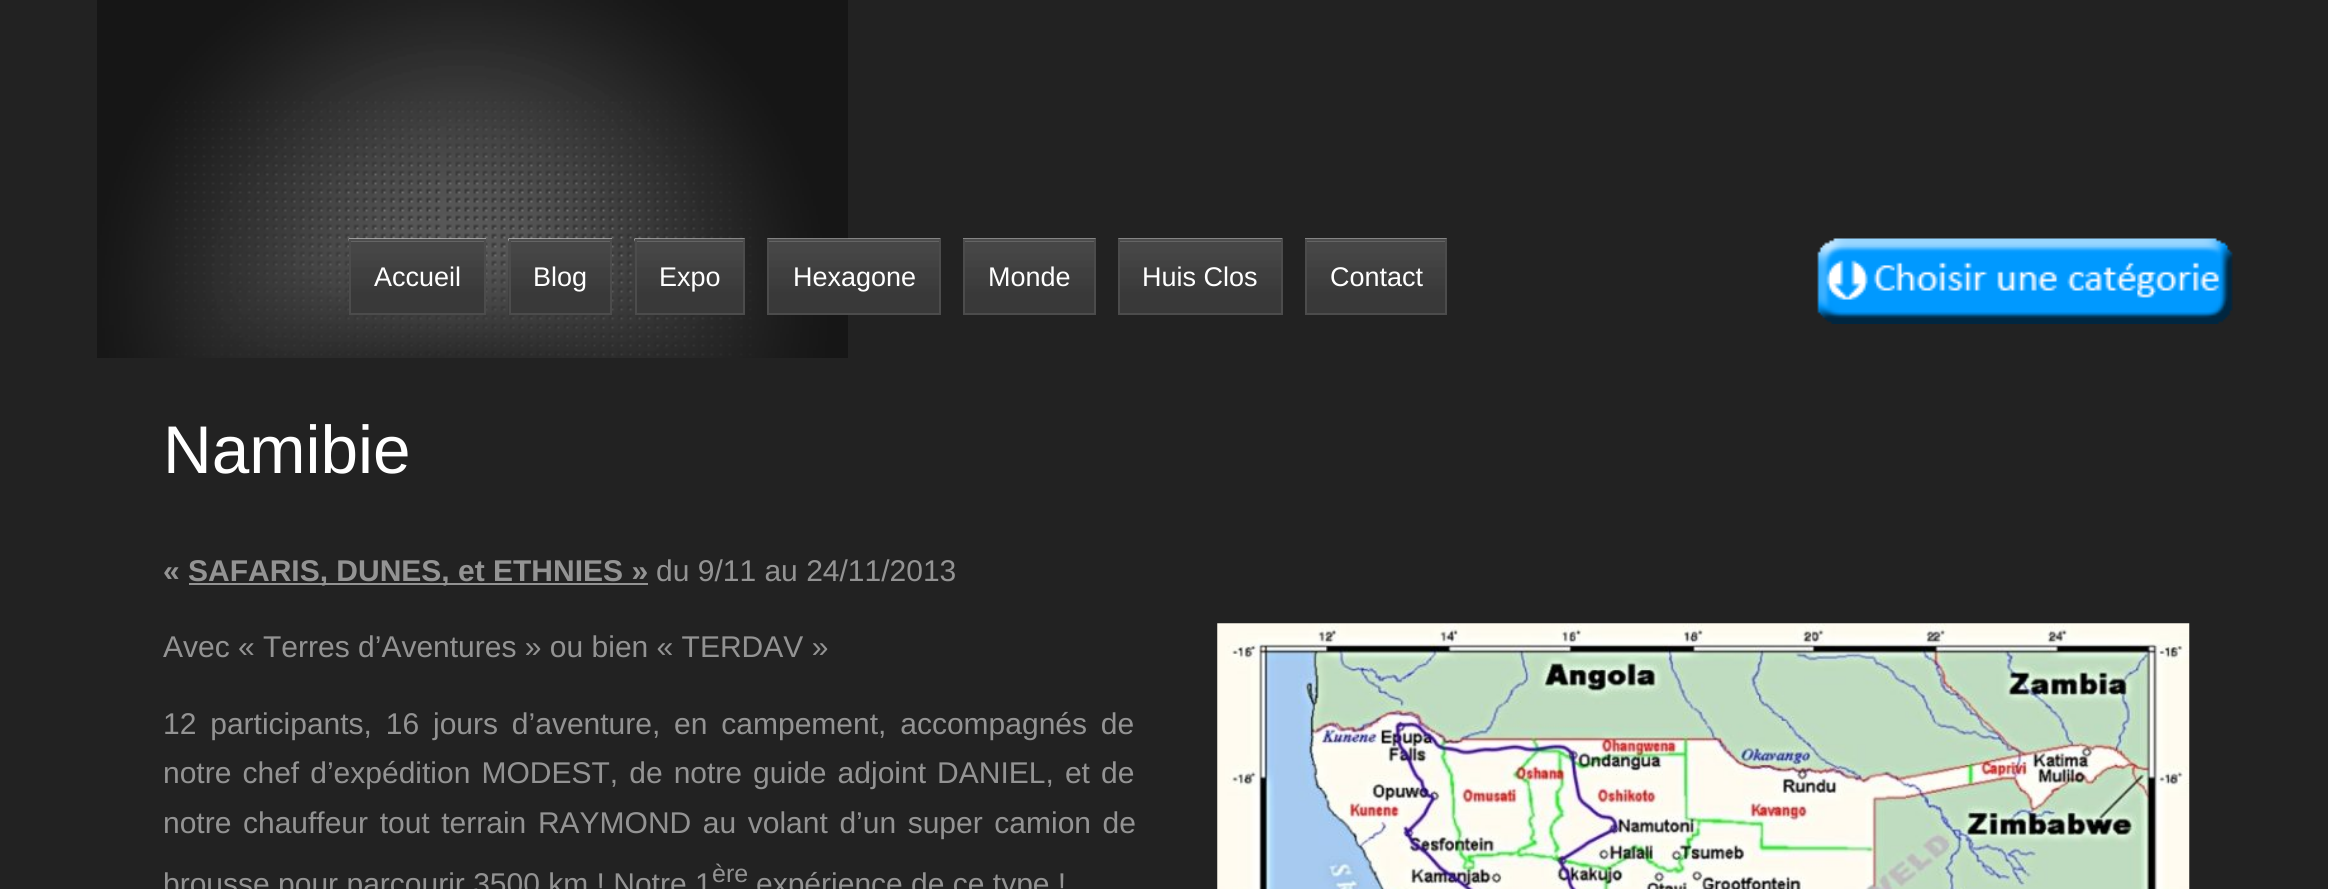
import math
import cairo

surface = cairo.ImageSurface(cairo.FORMAT_RGB24, 2328, 889)
ctx = cairo.Context(surface)
options = cairo.FontOptions()
options.set_hint_metrics(cairo.HINT_METRICS_OFF)
options.set_hint_style(cairo.HINT_STYLE_NONE)
ctx.set_font_options(options)
ctx.set_miter_limit(4)


def spaced_text(x, y, s, letter, word):
    ctx.move_to(x, y)
    for ch in s:
        ctx.show_text(ch)
        ctx.rel_move_to(letter + word * (ch == ' '), 0)


def picture(path, x, y, w, h):
    ctx.save()
    ctx.set_source_surface(cairo.ImageSurface.create_from_png(path), x, y)
    ctx.rectangle(x, y, w, h)
    ctx.fill()
    ctx.restore()


ctx.set_source_rgb(0.133, 0.133, 0.133)
ctx.paint()
picture("img1.png", 97, 0, 751, 358)
picture("img2.png", 348, 238, 138, 77)
ctx.rectangle(350, 240, 135, 74)
ctx.set_source_rgb(0.298, 0.298, 0.298)
ctx.stroke()
ctx.select_font_face("Liberation Sans")
ctx.set_font_size(27)
ctx.set_source_rgb(1, 1, 1)
ctx.move_to(374, 286)
ctx.show_text("Accueil")
picture("img3.png", 508, 238, 104, 77)
ctx.rectangle(510, 240, 101, 74)
ctx.set_source_rgb(0.298, 0.298, 0.298)
ctx.stroke()
ctx.set_source_rgb(1, 1, 1)
ctx.move_to(533, 286)
ctx.show_text("Blog")
picture("img4.png", 634, 238, 111, 77)
ctx.rectangle(636, 240, 108, 74)
ctx.set_source_rgb(0.298, 0.298, 0.298)
ctx.stroke()
ctx.set_source_rgb(1, 1, 1)
ctx.move_to(659, 286)
ctx.show_text("Expo")
picture("img5.png", 767, 238, 174, 75)
ctx.rectangle(768, 240, 172, 74)
ctx.set_source_rgb(0.298, 0.298, 0.298)
ctx.stroke()
ctx.set_source_rgb(1, 1, 1)
ctx.move_to(793, 286)
ctx.show_text("Hexagone")
picture("img6.png", 963, 238, 133, 75)
ctx.rectangle(964, 240, 131, 74)
ctx.set_source_rgb(0.298, 0.298, 0.298)
ctx.stroke()
ctx.set_source_rgb(1, 1, 1)
ctx.move_to(988, 286)
ctx.show_text("Monde")
picture("img7.png", 1118, 238, 165, 75)
ctx.rectangle(1119, 240, 163, 74)
ctx.set_source_rgb(0.298, 0.298, 0.298)
ctx.stroke()
ctx.set_source_rgb(1, 1, 1)
ctx.move_to(1142, 286)
ctx.show_text("Huis Clos")
picture("img8.png", 1305, 238, 142, 75)
ctx.rectangle(1306, 240, 140, 74)
ctx.set_source_rgb(0.298, 0.298, 0.298)
ctx.stroke()
ctx.set_source_rgb(1, 1, 1)
ctx.move_to(1330, 286)
ctx.show_text("Contact")
picture("img9.png", 1817, 238, 416, 86)
ctx.set_font_size(67.5)
ctx.move_to(163, 473)
ctx.show_text("Namibie")
ctx.select_font_face("Liberation Sans", cairo.FONT_SLANT_NORMAL, cairo.FONT_WEIGHT_BOLD)
ctx.set_font_size(30)
ctx.set_source_rgb(0.576, 0.576, 0.576)
ctx.move_to(163, 581)
ctx.show_text("«")
ctx.rectangle(189, 583, 459, 2)
ctx.fill()
ctx.move_to(188, 581)
ctx.show_text("SAFARIS, DUNES, et ETHNIES »")
ctx.select_font_face("Liberation Sans")
ctx.move_to(656, 581)
ctx.show_text("du 9/11 au 24/11/2013")
ctx.move_to(163, 657)
ctx.show_text("Avec « Terres d’Aventures » ou bien « TERDAV »")
spaced_text(163, 734, "12 participants, 16 jours d’aventure, en campement, accompagnés de", 0, 5.5)
spaced_text(163, 783, "notre chef d’expédition MODEST, de notre guide adjoint DANIEL, et de", 0, 2.75)
spaced_text(163, 833, "notre chauffeur tout terrain RAYMOND au volant d’un super camion de", 0, 3.25)
ctx.move_to(163, 894)
ctx.show_text("brousse pour parcourir 3500 km ! Notre 1")
ctx.set_font_size(25)
ctx.move_to(712, 882)
ctx.show_text("ère")
ctx.set_font_size(30)
ctx.move_to(756, 894)
ctx.show_text("expérience de ce type !")
picture("img10.png", 1217, 623, 973, 266)
surface.write_to_png("page.png")
